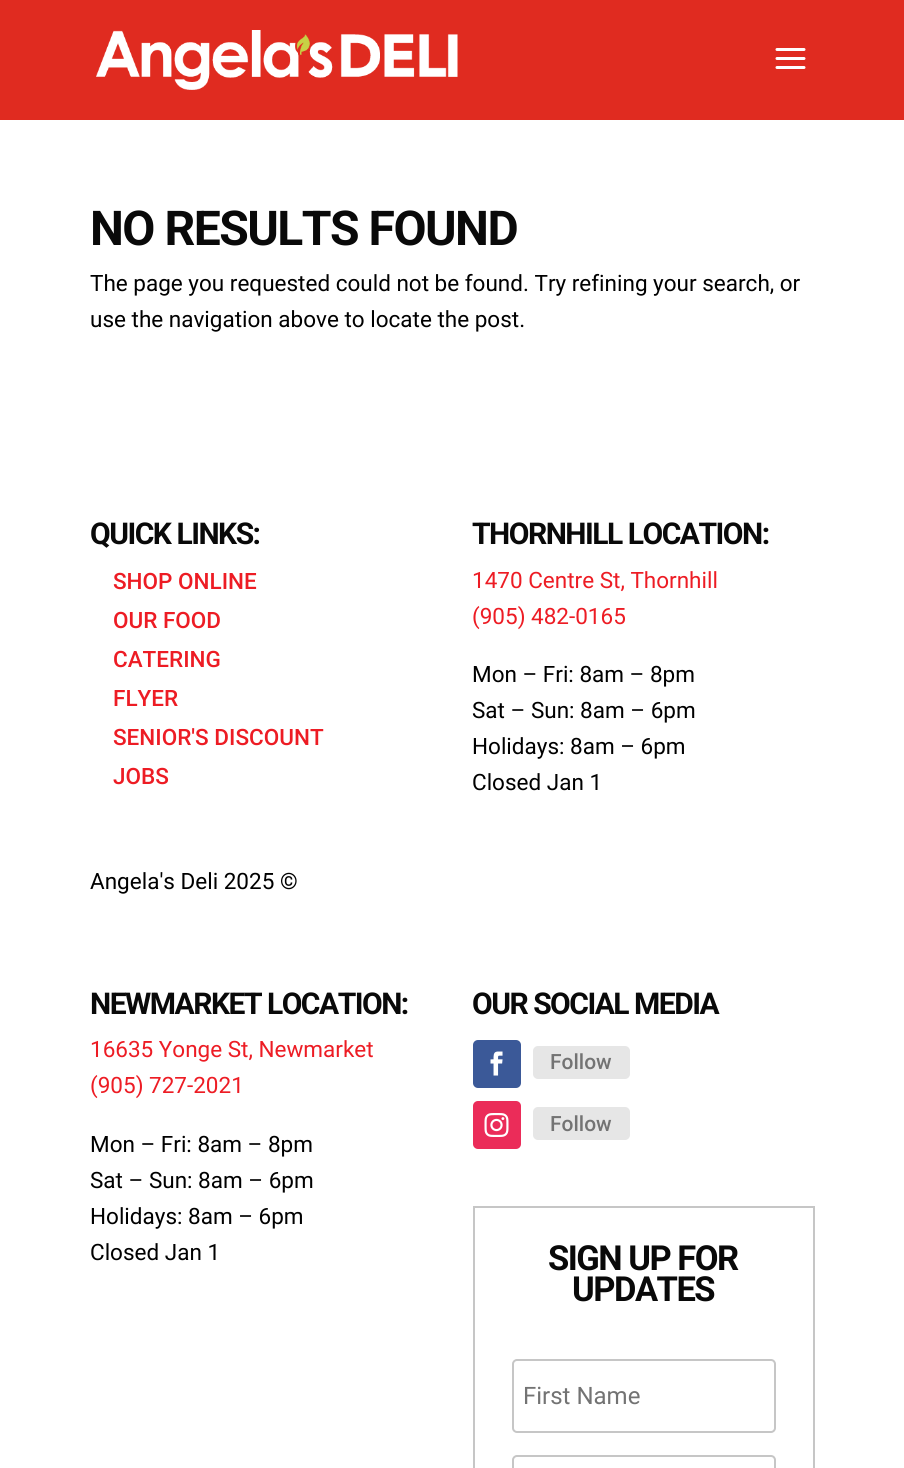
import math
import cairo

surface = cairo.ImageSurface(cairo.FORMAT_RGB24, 904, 1468)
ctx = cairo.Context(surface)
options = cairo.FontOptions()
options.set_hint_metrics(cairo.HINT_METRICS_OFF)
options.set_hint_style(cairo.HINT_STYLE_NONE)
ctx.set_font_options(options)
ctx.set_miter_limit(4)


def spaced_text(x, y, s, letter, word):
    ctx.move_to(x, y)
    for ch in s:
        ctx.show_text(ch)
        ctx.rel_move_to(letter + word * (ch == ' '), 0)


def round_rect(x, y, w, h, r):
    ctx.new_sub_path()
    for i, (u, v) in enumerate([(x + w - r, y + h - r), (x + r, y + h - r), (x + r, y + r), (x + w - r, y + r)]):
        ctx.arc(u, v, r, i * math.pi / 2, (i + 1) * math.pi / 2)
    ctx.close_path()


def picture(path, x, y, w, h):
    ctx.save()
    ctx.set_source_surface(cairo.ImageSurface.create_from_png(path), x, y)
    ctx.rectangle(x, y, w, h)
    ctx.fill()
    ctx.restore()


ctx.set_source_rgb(1, 1, 1)
ctx.paint()
ctx.set_source_rgb(0.878, 0.169, 0.125)
ctx.rectangle(0, 0, 904, 120)
ctx.fill()
picture("img1.png", 96, 30, 362, 60)
picture("img2.png", 775, 48, 31, 21)
ctx.select_font_face("Roboto", cairo.FONT_SLANT_NORMAL, cairo.FONT_WEIGHT_BOLD)
ctx.set_font_size(48)
ctx.set_source_rgb(0.039, 0.039, 0.039)
spaced_text(90, 245, "NO RESULTS FOUND", -1.5, 0)
ctx.select_font_face("Roboto")
ctx.set_font_size(22.5)
ctx.set_source_rgb(0, 0, 0)
ctx.move_to(90, 291)
ctx.show_text("The page you requested could not be found. Try refining your search, or")
ctx.move_to(90, 327)
ctx.show_text("use the navigation above to locate the post.")
ctx.select_font_face("Roboto", cairo.FONT_SLANT_NORMAL, cairo.FONT_WEIGHT_BOLD)
ctx.set_font_size(30)
ctx.set_source_rgb(0.039, 0.039, 0.039)
spaced_text(90, 544, "QUICK LINKS:", -1.5, 0)
ctx.select_font_face("Roboto Medium")
ctx.set_font_size(22.5)
ctx.set_source_rgb(0.929, 0.11, 0.141)
ctx.move_to(113, 589)
ctx.show_text("SHOP ONLINE")
ctx.move_to(113, 628)
ctx.show_text("OUR FOOD")
ctx.move_to(113, 667)
ctx.show_text("CATERING")
ctx.move_to(113, 706)
ctx.show_text("FLYER")
ctx.move_to(113, 745)
ctx.show_text("SENIOR'S DISCOUNT")
ctx.move_to(113, 784)
ctx.show_text("JOBS")
ctx.select_font_face("Roboto")
ctx.set_source_rgb(0, 0, 0)
ctx.move_to(90, 889)
ctx.show_text("Angela's Deli 2025 ©")
ctx.select_font_face("Roboto", cairo.FONT_SLANT_NORMAL, cairo.FONT_WEIGHT_BOLD)
ctx.set_font_size(30)
ctx.set_source_rgb(0.039, 0.039, 0.039)
spaced_text(472, 544, "THORNHILL LOCATION:", -1.5, 0)
ctx.select_font_face("Roboto")
ctx.set_font_size(22.5)
ctx.set_source_rgb(0.929, 0.11, 0.141)
ctx.move_to(472, 588)
ctx.show_text("1470 Centre St, Thornhill")
ctx.move_to(472, 624)
ctx.show_text("(905) 482-0165")
ctx.set_source_rgb(0, 0, 0)
ctx.move_to(472, 682)
ctx.show_text("Mon – Fri: 8am – 8pm")
ctx.move_to(472, 718)
ctx.show_text("Sat – Sun: 8am – 6pm")
ctx.move_to(472, 754)
ctx.show_text("Holidays: 8am – 6pm")
ctx.move_to(472, 790)
ctx.show_text("Closed Jan 1")
ctx.select_font_face("Roboto", cairo.FONT_SLANT_NORMAL, cairo.FONT_WEIGHT_BOLD)
ctx.set_font_size(30)
ctx.set_source_rgb(0.039, 0.039, 0.039)
spaced_text(90, 1014, "NEWMARKET LOCATION:", -1.5, 0)
ctx.select_font_face("Roboto")
ctx.set_font_size(22.5)
ctx.set_source_rgb(0.929, 0.11, 0.141)
ctx.move_to(90, 1057)
ctx.show_text("16635 Yonge St, Newmarket")
ctx.move_to(90, 1093)
ctx.show_text("(905) 727-2021")
ctx.set_source_rgb(0, 0, 0)
ctx.move_to(90, 1152)
ctx.show_text("Mon – Fri: 8am – 8pm")
ctx.move_to(90, 1188)
ctx.show_text("Sat – Sun: 8am – 6pm")
ctx.move_to(90, 1224)
ctx.show_text("Holidays: 8am – 6pm")
ctx.move_to(90, 1260)
ctx.show_text("Closed Jan 1")
ctx.select_font_face("Roboto", cairo.FONT_SLANT_NORMAL, cairo.FONT_WEIGHT_BOLD)
ctx.set_font_size(30)
ctx.set_source_rgb(0.039, 0.039, 0.039)
spaced_text(472, 1014, "OUR SOCIAL MEDIA", -1.5, 0)
ctx.set_source_rgb(0.231, 0.349, 0.596)
round_rect(473, 1040, 48, 48, 5)
ctx.fill()
picture("img3.png", 490, 1051, 13, 25)
ctx.set_source_rgb(0.902, 0.902, 0.902)
round_rect(533, 1046, 97, 33, 5)
ctx.fill()
ctx.select_font_face("Roboto Medium")
ctx.set_font_size(21)
ctx.set_source_rgb(0.451, 0.451, 0.451)
ctx.move_to(550, 1069)
ctx.show_text("Follow")
ctx.set_source_rgb(0.918, 0.173, 0.349)
round_rect(473, 1101, 48, 48, 5)
ctx.fill()
picture("img4.png", 484, 1113, 25, 24)
ctx.set_source_rgb(0.902, 0.902, 0.902)
round_rect(533, 1107, 97, 33, 5)
ctx.fill()
ctx.set_source_rgb(0.451, 0.451, 0.451)
ctx.move_to(550, 1131)
ctx.show_text("Follow")
ctx.rectangle(474, 1207, 340, 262)
ctx.set_source_rgb(0.776, 0.776, 0.776)
ctx.stroke()
ctx.select_font_face("Roboto", cairo.FONT_SLANT_NORMAL, cairo.FONT_WEIGHT_BOLD)
ctx.set_font_size(34.5)
ctx.set_source_rgb(0.039, 0.039, 0.039)
spaced_text(548, 1270, "SIGN UP FOR", -1.5, 0)
spaced_text(572, 1301, "UPDATES", -1.5, 0)
round_rect(513, 1360, 262, 72, 4)
ctx.set_source_rgb(0.776, 0.776, 0.776)
ctx.stroke()
ctx.select_font_face("Roboto")
ctx.set_font_size(24)
ctx.set_source_rgb(0.451, 0.451, 0.451)
ctx.move_to(523, 1404)
ctx.show_text("First Name")
round_rect(513, 1456, 262, 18, 4)
ctx.set_source_rgb(0.776, 0.776, 0.776)
ctx.stroke()
surface.write_to_png("page.png")
